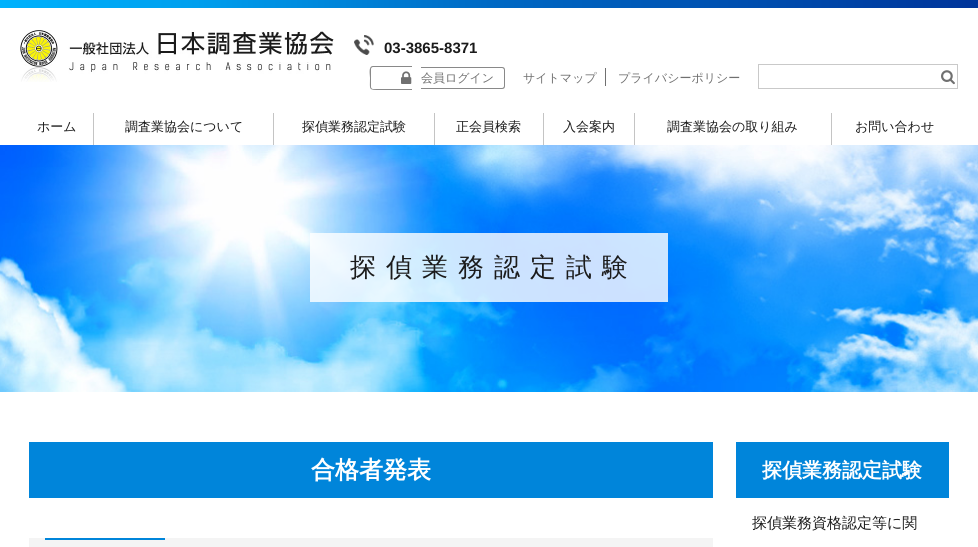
import math
import cairo

surface = cairo.ImageSurface(cairo.FORMAT_RGB24, 978, 547)
ctx = cairo.Context(surface)
options = cairo.FontOptions()
options.set_hint_metrics(cairo.HINT_METRICS_OFF)
options.set_hint_style(cairo.HINT_STYLE_NONE)
ctx.set_font_options(options)
ctx.set_miter_limit(4)


def spaced_text(x, y, s, letter, word):
    ctx.move_to(x, y)
    for ch in s:
        ctx.show_text(ch)
        ctx.rel_move_to(letter + word * (ch == ' '), 0)


def picture(path, x, y, w, h):
    ctx.save()
    ctx.set_source_surface(cairo.ImageSurface.create_from_png(path), x, y)
    ctx.rectangle(x, y, w, h)
    ctx.fill()
    ctx.restore()


ctx.set_source_rgb(1, 1, 1)
ctx.paint()
gradient = cairo.LinearGradient(0, 4, 978, 4)
gradient.add_color_stop_rgba(0, 0, 0.698, 0.992, 1)
gradient.add_color_stop_rgba(0.2, 0, 0.624, 0.933, 1)
gradient.add_color_stop_rgba(0.5, 0, 0.412, 0.769, 1)
gradient.add_color_stop_rgba(0.8, 0, 0.294, 0.675, 1)
gradient.add_color_stop_rgba(1, 0, 0.204, 0.604, 1)
ctx.set_source(gradient)
ctx.rectangle(0, 0, 978, 8)
ctx.fill()
picture("img1.png", 20, 30, 314, 52)
picture("img2.png", 354, 35, 20, 20)
ctx.select_font_face("Liberation Sans", cairo.FONT_SLANT_NORMAL, cairo.FONT_WEIGHT_BOLD)
ctx.set_font_size(15)
ctx.set_source_rgb(0.106, 0.106, 0.106)
ctx.move_to(384, 53)
ctx.show_text("03-3865-8371")
ctx.set_source_rgb(0.537, 0.537, 0.537)
ctx.set_fill_rule(cairo.FILL_RULE_EVEN_ODD)
ctx.new_path()
ctx.move_to(373, 66)
ctx.line_to(412, 66)
ctx.line_to(412, 90)
ctx.line_to(380, 90)
ctx.curve_to(368, 90, 370, 90, 370, 78)
ctx.curve_to(370, 75, 368, 66, 373, 66)
ctx.close_path()
ctx.move_to(373, 67)
ctx.line_to(412, 67)
ctx.line_to(412, 89)
ctx.line_to(373, 89)
ctx.curve_to(372, 89, 371, 88, 371, 87)
ctx.line_to(371, 69)
ctx.curve_to(371, 68, 372, 67, 373, 67)
ctx.close_path()
ctx.fill()
ctx.new_path()
ctx.move_to(421, 67)
ctx.line_to(502, 67)
ctx.curve_to(504, 67, 505, 68, 505, 70)
ctx.line_to(505, 86)
ctx.curve_to(505, 88, 504, 89, 502, 89)
ctx.line_to(421, 89)
ctx.close_path()
ctx.move_to(421, 68)
ctx.line_to(502, 68)
ctx.curve_to(503, 68, 504, 69, 504, 70)
ctx.line_to(504, 86)
ctx.curve_to(504, 87, 503, 88, 502, 88)
ctx.line_to(421, 88)
ctx.close_path()
ctx.fill()
picture("img3.png", 401, 71, 11, 13)
ctx.select_font_face("WenQuanYi Zen Hei Medium")
ctx.set_font_size(12)
ctx.set_source_rgb(0.439, 0.439, 0.439)
ctx.move_to(421, 82)
ctx.show_text("会員ログイン")
ctx.rectangle(605, 68, 1, 18)
ctx.fill()
ctx.move_to(523, 82)
ctx.show_text("サイトマップ")
ctx.move_to(618, 82)
ctx.show_text("プライバシーポリシー")
ctx.rectangle(758.5, 64.5, 199, 24)
ctx.set_source_rgb(0.788, 0.788, 0.788)
ctx.set_line_width(1)
ctx.stroke()
picture("img4.png", 941, 70, 14, 15)
ctx.set_font_size(13)
ctx.set_source_rgb(0.106, 0.106, 0.106)
ctx.move_to(37, 131)
ctx.show_text("ホーム")
ctx.set_source_rgb(0.769, 0.769, 0.769)
ctx.rectangle(93, 113, 1, 32)
ctx.fill()
ctx.set_source_rgb(0.106, 0.106, 0.106)
ctx.move_to(125, 131)
ctx.show_text("調査業協会について")
ctx.set_source_rgb(0.769, 0.769, 0.769)
ctx.rectangle(273, 113, 1, 32)
ctx.fill()
ctx.set_source_rgb(0.106, 0.106, 0.106)
ctx.move_to(302, 131)
ctx.show_text("探偵業務認定試験")
ctx.set_source_rgb(0.769, 0.769, 0.769)
ctx.rectangle(434, 113, 1, 32)
ctx.fill()
ctx.set_source_rgb(0.106, 0.106, 0.106)
ctx.move_to(456, 131)
ctx.show_text("正会員検索")
ctx.set_source_rgb(0.769, 0.769, 0.769)
ctx.rectangle(543, 113, 1, 32)
ctx.fill()
ctx.set_source_rgb(0.106, 0.106, 0.106)
ctx.move_to(563, 131)
ctx.show_text("入会案内")
ctx.set_source_rgb(0.769, 0.769, 0.769)
ctx.rectangle(634, 113, 1, 32)
ctx.fill()
ctx.set_source_rgb(0.106, 0.106, 0.106)
ctx.move_to(667, 131)
ctx.show_text("調査業協会の取り組み")
ctx.set_source_rgb(0.769, 0.769, 0.769)
ctx.rectangle(831, 113, 1, 32)
ctx.fill()
ctx.set_source_rgb(0.106, 0.106, 0.106)
ctx.move_to(855, 131)
ctx.show_text("お問い合わせ")
picture("img5.png", 0, 145, 978, 247)
ctx.set_source_rgba(1, 1, 1, 0.8)
ctx.rectangle(310, 233, 358, 69)
ctx.fill()
ctx.set_font_size(26)
ctx.set_source_rgb(0.106, 0.106, 0.106)
spaced_text(350, 276, "探偵業務認定試験", 10, 0)
ctx.set_source_rgb(0, 0.522, 0.855)
ctx.rectangle(29, 442, 684, 56)
ctx.fill()
ctx.select_font_face("WenQuanYi Zen Hei", cairo.FONT_SLANT_NORMAL, cairo.FONT_WEIGHT_BOLD)
ctx.set_font_size(24)
ctx.set_source_rgb(1, 1, 1)
ctx.move_to(311, 478)
ctx.show_text("合格者発表")
ctx.set_source_rgb(0.957, 0.957, 0.957)
ctx.rectangle(29, 538, 684, 9)
ctx.fill()
ctx.set_source_rgb(0, 0.522, 0.855)
ctx.rectangle(45, 538, 120, 2)
ctx.fill()
ctx.rectangle(736, 442, 213, 56)
ctx.fill()
ctx.set_font_size(20)
ctx.set_source_rgb(1, 1, 1)
ctx.move_to(762, 477)
ctx.show_text("探偵業務認定試験")
ctx.select_font_face("WenQuanYi Zen Hei Medium")
ctx.set_font_size(15)
ctx.set_source_rgb(0.106, 0.106, 0.106)
ctx.move_to(752, 528)
ctx.show_text("探偵業務資格認定等に関")
surface.write_to_png("page.png")
